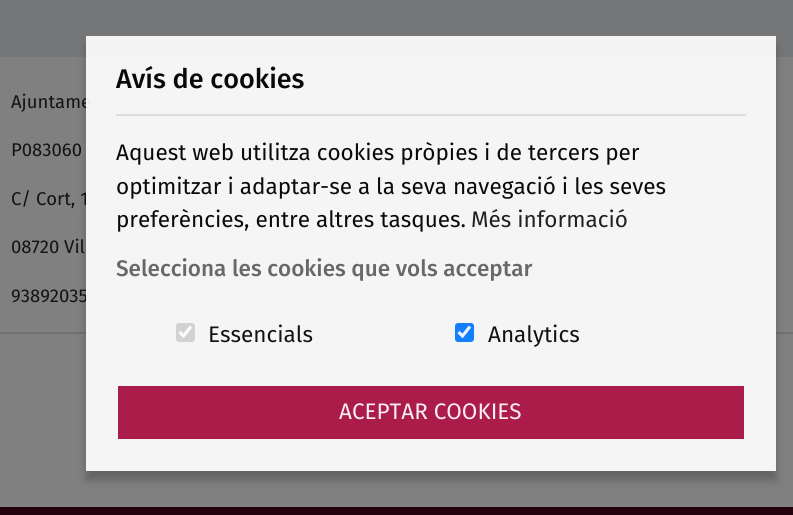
import math
import cairo

surface = cairo.ImageSurface(cairo.FORMAT_RGB24, 793, 515)
ctx = cairo.Context(surface)
options = cairo.FontOptions()
options.set_hint_metrics(cairo.HINT_METRICS_OFF)
options.set_hint_style(cairo.HINT_STYLE_NONE)
ctx.set_font_options(options)
ctx.set_miter_limit(4)


def round_rect(x, y, w, h, r):
    ctx.new_sub_path()
    for i, (u, v) in enumerate([(x + w - r, y + h - r), (x + r, y + h - r), (x + r, y + r), (x + w - r, y + r)]):
        ctx.arc(u, v, r, i * math.pi / 2, (i + 1) * math.pi / 2)
    ctx.close_path()


def shadow(x, y, w, h, r, blur, alpha):
    ctx.push_group_with_content(cairo.CONTENT_ALPHA)
    ctx.set_operator(cairo.OPERATOR_SOURCE)
    for i in range(15, -16, -2):
        e = blur * i / 6
        if min(w, h) + 2 * e > 0:
            ctx.set_source_rgba(0, 0, 0, alpha * math.erfc((i - 1) / 8.5) / 2)
            round_rect(x - e, y - e, w + 2 * e, h + 2 * e, max(0, min(r + e + blur * .6, min(w, h) / 2 + e)))
            ctx.fill()
    ctx.mask(ctx.pop_group())


ctx.set_source_rgb(0.502, 0.502, 0.502)
ctx.paint()
ctx.set_source_rgb(0.459, 0.463, 0.471)
ctx.rectangle(0, 0, 793, 57)
ctx.fill()
ctx.select_font_face("Fira Sans")
ctx.set_font_size(18.5)
ctx.set_source_rgb(0.067, 0.075, 0.082)
ctx.move_to(11, 108)
ctx.show_text("Ajuntame")
ctx.move_to(11, 156)
ctx.show_text("P083060")
ctx.move_to(11, 205)
ctx.show_text("C/ Cort, 1")
ctx.move_to(11, 253)
ctx.show_text("08720 Vil")
ctx.move_to(11, 302)
ctx.show_text("93892035")
ctx.set_source_rgb(0.435, 0.443, 0.451)
ctx.rectangle(0, 332, 793, 2)
ctx.fill()
ctx.save()
ctx.set_fill_rule(cairo.FILL_RULE_EVEN_ODD)
ctx.new_path()
ctx.move_to(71, 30)
ctx.line_to(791, 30)
ctx.line_to(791, 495)
ctx.line_to(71, 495)
ctx.close_path()
ctx.move_to(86, 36)
ctx.line_to(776, 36)
ctx.line_to(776, 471)
ctx.line_to(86, 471)
ctx.close_path()
ctx.clip()
ctx.set_source_rgb(0, 0, 0)
shadow(86, 45, 690, 435, 0, 4.5, 0.23)
ctx.restore()
ctx.set_source_rgba(1, 1, 1, 0.92)
ctx.rectangle(86, 36, 690, 435)
ctx.fill()
ctx.select_font_face("Fira Sans Medium")
ctx.set_font_size(27)
ctx.set_source_rgb(0.039, 0.039, 0.039)
ctx.move_to(116, 88)
ctx.show_text("Avís de cookies")
ctx.set_source_rgb(0.867, 0.867, 0.867)
ctx.rectangle(116, 114, 630, 2)
ctx.fill()
ctx.select_font_face("Fira Sans")
ctx.set_font_size(22.5)
ctx.set_source_rgb(0.039, 0.039, 0.039)
ctx.move_to(116, 160)
ctx.show_text("Aquest web utilitza cookies pròpies i de tercers per")
ctx.move_to(116, 194)
ctx.show_text("optimitzar i adaptar-se a la seva navegació i les seves")
ctx.move_to(116, 227)
ctx.show_text("preferències, entre altres tasques.")
ctx.set_source_rgb(0.125, 0.125, 0.125)
ctx.move_to(471, 227)
ctx.show_text("Més informació")
ctx.select_font_face("Fira Sans Medium")
ctx.set_source_rgb(0.408, 0.408, 0.408)
ctx.move_to(116, 276)
ctx.show_text("Selecciona les cookies que vols acceptar")
ctx.set_source_rgb(0.824, 0.824, 0.824)
round_rect(176, 323, 19, 19, 3)
ctx.fill()
ctx.new_path()
ctx.move_to(179.5, 332)
ctx.line_to(183.5, 336)
ctx.line_to(191, 326.5)
ctx.set_source_rgb(0.988, 0.988, 0.988)
ctx.set_line_width(3.1)
ctx.stroke()
ctx.select_font_face("Fira Sans")
ctx.set_source_rgb(0.067, 0.075, 0.082)
ctx.move_to(208, 342)
ctx.show_text("Essencials")
ctx.set_source_rgb(0.075, 0.498, 0.996)
round_rect(455, 323, 19, 19, 3)
ctx.fill()
ctx.new_path()
ctx.move_to(458.5, 332)
ctx.line_to(462.5, 336)
ctx.line_to(470, 326.5)
ctx.set_source_rgb(0.929, 0.961, 1)
ctx.stroke()
ctx.set_source_rgb(0.067, 0.075, 0.082)
ctx.move_to(488, 342)
ctx.show_text("Analytics")
ctx.set_source_rgba(0.651, 0.039, 0.239, 0.92)
ctx.rectangle(118, 386, 626, 53)
ctx.fill()
ctx.set_source_rgb(0.976, 0.933, 0.945)
ctx.move_to(339, 419)
ctx.show_text("ACEPTAR COOKIES")
ctx.set_source_rgb(0.137, 0.008, 0.051)
ctx.rectangle(0, 507, 793, 8)
ctx.fill()
surface.write_to_png("page.png")
